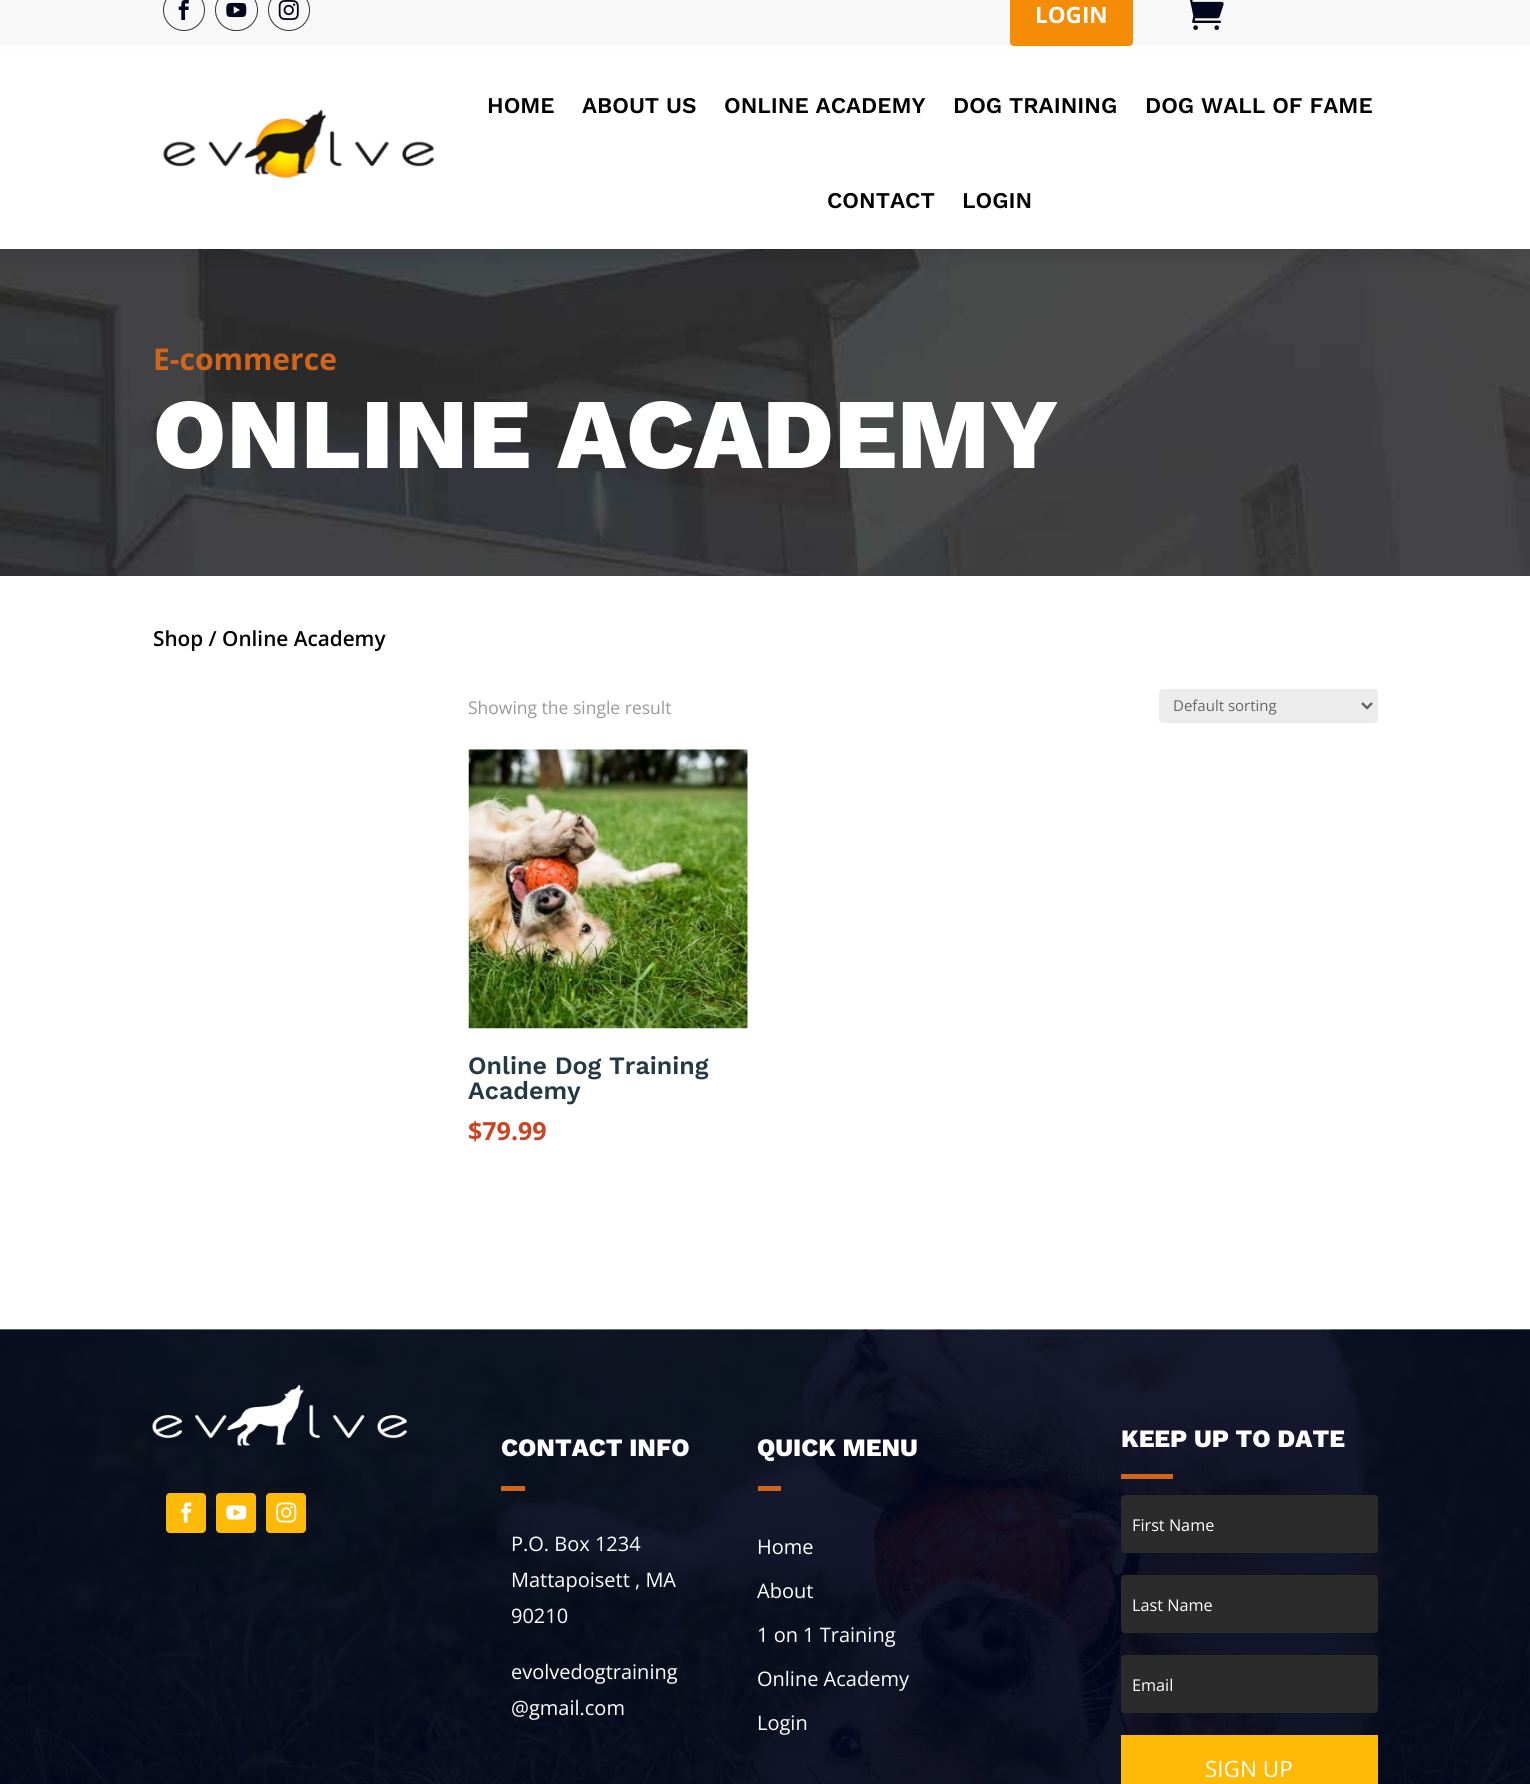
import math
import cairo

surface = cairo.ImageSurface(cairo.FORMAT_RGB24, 1530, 1784)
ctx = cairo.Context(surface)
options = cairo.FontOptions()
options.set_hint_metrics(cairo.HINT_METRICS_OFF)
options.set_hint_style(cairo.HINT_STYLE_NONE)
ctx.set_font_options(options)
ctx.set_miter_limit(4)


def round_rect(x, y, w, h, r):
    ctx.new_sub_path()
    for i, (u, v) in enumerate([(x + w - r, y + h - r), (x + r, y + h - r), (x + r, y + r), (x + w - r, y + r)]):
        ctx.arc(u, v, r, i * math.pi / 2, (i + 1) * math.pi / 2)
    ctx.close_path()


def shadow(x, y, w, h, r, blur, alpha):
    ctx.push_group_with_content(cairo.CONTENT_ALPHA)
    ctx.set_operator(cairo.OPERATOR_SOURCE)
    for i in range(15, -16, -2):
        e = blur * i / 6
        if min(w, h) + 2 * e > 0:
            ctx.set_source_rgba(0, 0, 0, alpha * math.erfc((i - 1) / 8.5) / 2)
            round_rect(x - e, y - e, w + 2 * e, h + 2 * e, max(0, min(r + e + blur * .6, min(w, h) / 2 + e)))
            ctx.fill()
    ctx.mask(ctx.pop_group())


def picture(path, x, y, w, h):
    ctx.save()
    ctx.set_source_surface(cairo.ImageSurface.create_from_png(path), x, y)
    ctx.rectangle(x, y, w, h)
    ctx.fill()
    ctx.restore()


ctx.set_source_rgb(1, 1, 1)
ctx.paint()
ctx.set_source_rgb(0.969, 0.969, 0.969)
ctx.rectangle(0, 0, 1530, 46)
ctx.fill()
ctx.arc(184, 10, 20.5, 0, 2 * math.pi)
ctx.set_source_rgb(0.2, 0.2, 0.2)
ctx.set_line_width(1)
ctx.stroke()
picture("img1.png", 178, 0, 11, 20)
round_rect(215.5, -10.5, 42, 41, 20.5)
ctx.stroke()
picture("img2.png", 226, 2, 21, 16)
ctx.arc(289, 10, 20.5, 0, 2 * math.pi)
ctx.stroke()
picture("img3.png", 278, 0, 21, 20)
ctx.set_source_rgb(0.957, 0.549, 0.024)
round_rect(1010, -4, 123, 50, 4)
ctx.fill()
ctx.select_font_face("Open Sans", cairo.FONT_SLANT_NORMAL, cairo.FONT_WEIGHT_BOLD)
ctx.set_font_size(22.5)
ctx.set_source_rgb(1, 1, 1)
ctx.move_to(1035, 23)
ctx.show_text("LOGIN")
picture("img4.png", 1190, 0, 34, 30)
picture("img6.png", 0, 249, 1530, 327)
ctx.set_source_rgb(0, 0, 0)
shadow(1, 69, 1515, 187, 0, 11, 0.11)
ctx.set_source_rgb(1, 1, 1)
ctx.rectangle(0, 54, 1530, 195)
ctx.fill()
picture("img5.png", 163, 109, 272, 70)
ctx.select_font_face("Work Sans SemiBold")
ctx.set_source_rgb(0, 0, 0)
ctx.move_to(487, 113)
ctx.show_text("HOME")
ctx.move_to(582, 113)
ctx.show_text("ABOUT US")
ctx.move_to(724, 113)
ctx.show_text("ONLINE ACADEMY")
ctx.move_to(953, 113)
ctx.show_text("DOG TRAINING")
ctx.move_to(1145, 113)
ctx.show_text("DOG WALL OF FAME")
ctx.move_to(827, 208)
ctx.show_text("CONTACT")
ctx.move_to(962, 208)
ctx.show_text("LOGIN")
ctx.select_font_face("Open Sans", cairo.FONT_SLANT_NORMAL, cairo.FONT_WEIGHT_BOLD)
ctx.set_font_size(30)
ctx.set_source_rgb(0.82, 0.396, 0.102)
ctx.move_to(153, 370)
ctx.show_text("E-commerce")
ctx.select_font_face("Work Sans ExtraBold")
ctx.set_font_size(100)
ctx.set_source_rgb(1, 1, 1)
ctx.move_to(153, 468)
ctx.show_text("ONLINE ACADEMY")
ctx.select_font_face("Open Sans SemiBold")
ctx.set_font_size(20.75)
ctx.set_source_rgb(0, 0, 0)
ctx.move_to(153, 646)
ctx.show_text("Shop / Online Academy")
ctx.select_font_face("Open Sans")
ctx.set_font_size(17.5)
ctx.set_source_rgb(0.6, 0.6, 0.6)
ctx.move_to(468, 714)
ctx.show_text("Showing the single result")
ctx.set_source_rgb(0.925, 0.925, 0.925)
round_rect(1159, 689, 219, 34, 4)
ctx.fill()
ctx.new_path()
ctx.move_to(1362, 703)
ctx.line_to(1367, 708)
ctx.line_to(1372, 703)
ctx.set_source_rgb(0.4, 0.4, 0.4)
ctx.set_line_width(2.5)
ctx.stroke()
ctx.set_font_size(15)
ctx.move_to(1173, 711)
ctx.show_text("Default sorting")
picture("img7.png", 468, 749, 280, 280)
ctx.select_font_face("Work Sans SemiBold")
ctx.set_font_size(25)
ctx.set_source_rgb(0.145, 0.22, 0.271)
ctx.move_to(468, 1074)
ctx.show_text("Online Dog Training")
ctx.move_to(468, 1099)
ctx.show_text("Academy")
ctx.select_font_face("Open Sans", cairo.FONT_SLANT_NORMAL, cairo.FONT_WEIGHT_BOLD)
ctx.set_source_rgb(0.788, 0.271, 0.141)
ctx.move_to(468, 1140)
ctx.show_text("$79.99")
picture("img8.png", 0, 1329, 1530, 455)
picture("img9.png", 152, 1384, 256, 63)
ctx.set_source_rgb(1, 0.729, 0.031)
round_rect(166, 1493, 40, 40, 4)
ctx.fill()
picture("img10.png", 181, 1502, 11, 21)
round_rect(216, 1493, 40, 40, 4)
ctx.fill()
picture("img11.png", 226, 1505, 21, 15)
round_rect(266, 1493, 40, 40, 4)
ctx.fill()
picture("img12.png", 276, 1502, 21, 21)
ctx.select_font_face("Work Sans ExtraBold")
ctx.set_source_rgb(1, 1, 1)
ctx.move_to(501, 1456)
ctx.show_text("CONTACT INFO")
ctx.set_source_rgb(0.82, 0.396, 0.102)
ctx.rectangle(501, 1486, 24, 5)
ctx.fill()
ctx.select_font_face("Open Sans")
ctx.set_font_size(20)
ctx.set_source_rgb(1, 1, 1)
ctx.move_to(511, 1551)
ctx.show_text("P.O. Box 1234")
ctx.move_to(511, 1587)
ctx.show_text("Mattapoisett , MA")
ctx.move_to(511, 1623)
ctx.show_text("90210")
ctx.move_to(511, 1679)
ctx.show_text("evolvedogtraining")
ctx.move_to(511, 1715)
ctx.show_text("@gmail.com")
ctx.select_font_face("Work Sans ExtraBold")
ctx.set_font_size(25)
ctx.move_to(757, 1456)
ctx.show_text("QUICK MENU")
ctx.set_source_rgb(0.82, 0.396, 0.102)
ctx.rectangle(758, 1486, 23, 5)
ctx.fill()
ctx.select_font_face("Open Sans")
ctx.set_font_size(20)
ctx.set_source_rgb(1, 1, 1)
ctx.move_to(757, 1554)
ctx.show_text("Home")
ctx.move_to(757, 1598)
ctx.show_text("About")
ctx.move_to(757, 1642)
ctx.show_text("1 on 1 Training")
ctx.move_to(757, 1686)
ctx.show_text("Online Academy")
ctx.move_to(757, 1730)
ctx.show_text("Login")
ctx.select_font_face("Work Sans ExtraBold")
ctx.set_font_size(25)
ctx.move_to(1121, 1447)
ctx.show_text("KEEP UP TO DATE")
ctx.set_source_rgb(0.82, 0.396, 0.102)
ctx.rectangle(1121, 1474, 52, 5)
ctx.fill()
ctx.set_source_rgb(0.169, 0.169, 0.169)
round_rect(1121, 1495, 257, 58, 4)
ctx.fill()
ctx.select_font_face("Open Sans")
ctx.set_font_size(16.25)
ctx.set_source_rgb(1, 1, 1)
ctx.move_to(1132, 1531)
ctx.show_text("First Name")
ctx.set_source_rgb(0.169, 0.169, 0.169)
round_rect(1121, 1575, 257, 58, 4)
ctx.fill()
ctx.set_source_rgb(1, 1, 1)
ctx.move_to(1132, 1611)
ctx.show_text("Last Name")
ctx.set_source_rgb(0.169, 0.169, 0.169)
round_rect(1121, 1655, 257, 58, 4)
ctx.fill()
ctx.set_source_rgb(1, 1, 1)
ctx.move_to(1132, 1691)
ctx.show_text("Email")
ctx.set_source_rgb(1, 0.729, 0.031)
ctx.rectangle(1121, 1735, 257, 49)
ctx.fill()
ctx.set_font_size(22.5)
ctx.set_source_rgb(1, 1, 1)
ctx.move_to(1205, 1777)
ctx.show_text("SIGN UP")
surface.write_to_png("page.png")
